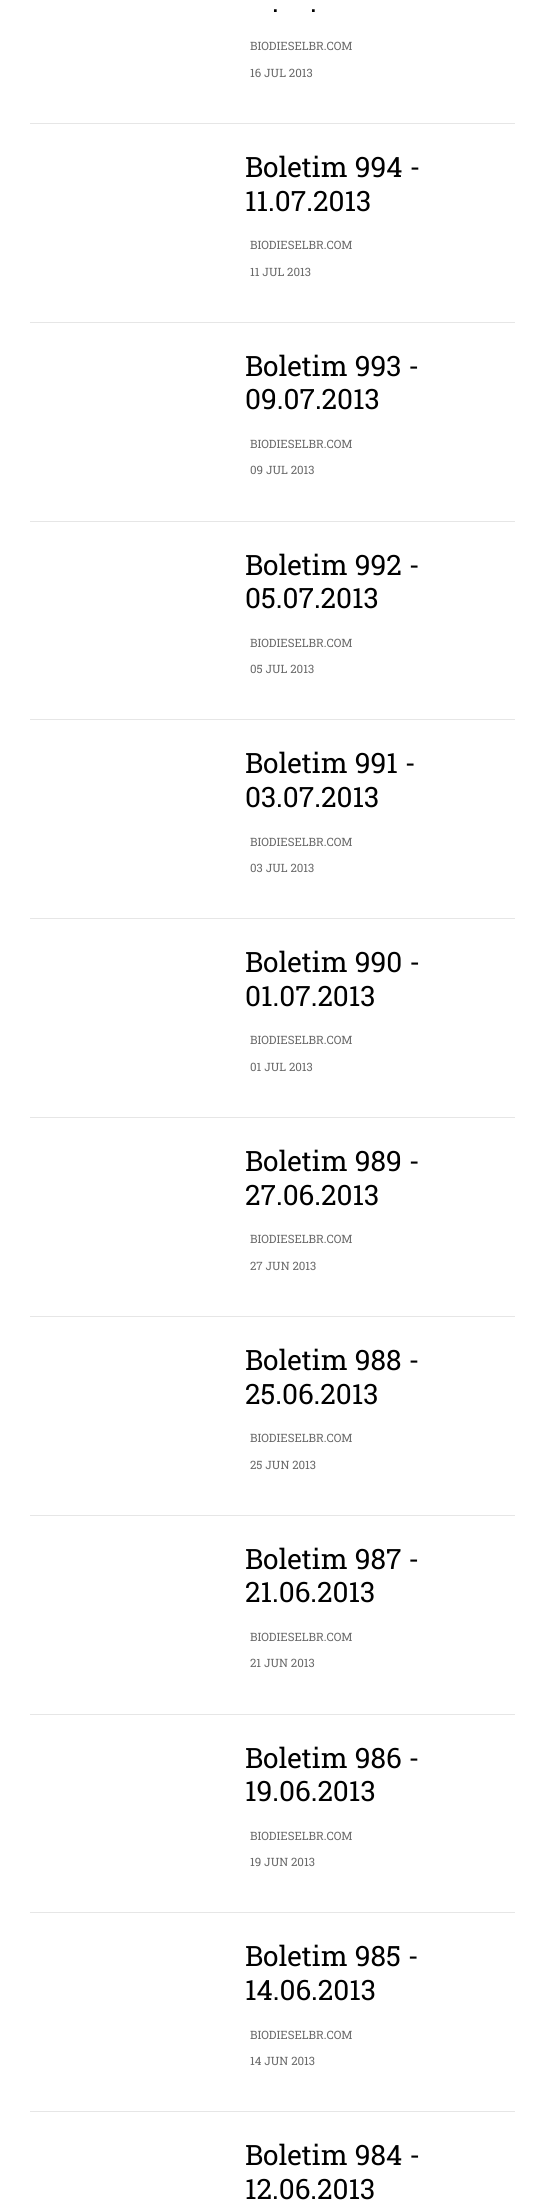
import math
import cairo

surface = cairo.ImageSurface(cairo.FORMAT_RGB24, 545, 2210)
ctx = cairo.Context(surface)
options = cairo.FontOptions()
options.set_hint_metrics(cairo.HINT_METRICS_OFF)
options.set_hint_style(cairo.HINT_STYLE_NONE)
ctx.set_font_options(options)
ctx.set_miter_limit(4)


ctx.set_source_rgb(1, 1, 1)
ctx.paint()
ctx.select_font_face("Roboto Slab")
ctx.set_font_size(28)
ctx.set_source_rgb(0, 0, 0)
ctx.move_to(272, 12)
ctx.show_text(".")
ctx.move_to(310, 12)
ctx.show_text(".")
ctx.set_font_size(11.5)
ctx.set_source_rgb(0.412, 0.412, 0.412)
ctx.move_to(250, 50)
ctx.show_text("BIODIESELBR.COM")
ctx.move_to(250, 77)
ctx.show_text("16 JUL 2013")
ctx.set_source_rgb(0.902, 0.902, 0.902)
ctx.rectangle(30, 123, 485, 1)
ctx.fill()
ctx.set_font_size(28)
ctx.set_source_rgb(0, 0, 0)
ctx.move_to(245, 177)
ctx.show_text("Boletim 994 -")
ctx.move_to(245, 211)
ctx.show_text("11.07.2013")
ctx.set_font_size(11.5)
ctx.set_source_rgb(0.412, 0.412, 0.412)
ctx.move_to(250, 249)
ctx.show_text("BIODIESELBR.COM")
ctx.move_to(250, 276)
ctx.show_text("11 JUL 2013")
ctx.set_source_rgb(0.902, 0.902, 0.902)
ctx.rectangle(30, 322, 485, 1)
ctx.fill()
ctx.set_font_size(28)
ctx.set_source_rgb(0, 0, 0)
ctx.move_to(245, 376)
ctx.show_text("Boletim 993 -")
ctx.move_to(245, 409)
ctx.show_text("09.07.2013")
ctx.set_font_size(11.5)
ctx.set_source_rgb(0.412, 0.412, 0.412)
ctx.move_to(250, 448)
ctx.show_text("BIODIESELBR.COM")
ctx.move_to(250, 474)
ctx.show_text("09 JUL 2013")
ctx.set_source_rgb(0.902, 0.902, 0.902)
ctx.rectangle(30, 521, 485, 1)
ctx.fill()
ctx.set_font_size(28)
ctx.set_source_rgb(0, 0, 0)
ctx.move_to(245, 575)
ctx.show_text("Boletim 992 -")
ctx.move_to(245, 608)
ctx.show_text("05.07.2013")
ctx.set_font_size(11.5)
ctx.set_source_rgb(0.412, 0.412, 0.412)
ctx.move_to(250, 647)
ctx.show_text("BIODIESELBR.COM")
ctx.move_to(250, 673)
ctx.show_text("05 JUL 2013")
ctx.set_source_rgb(0.902, 0.902, 0.902)
ctx.rectangle(30, 719, 485, 1)
ctx.fill()
ctx.set_font_size(28)
ctx.set_source_rgb(0, 0, 0)
ctx.move_to(245, 773)
ctx.show_text("Boletim 991 -")
ctx.move_to(245, 807)
ctx.show_text("03.07.2013")
ctx.set_font_size(11.5)
ctx.set_source_rgb(0.412, 0.412, 0.412)
ctx.move_to(250, 846)
ctx.show_text("BIODIESELBR.COM")
ctx.move_to(250, 872)
ctx.show_text("03 JUL 2013")
ctx.set_source_rgb(0.902, 0.902, 0.902)
ctx.rectangle(30, 918, 485, 1)
ctx.fill()
ctx.set_font_size(28)
ctx.set_source_rgb(0, 0, 0)
ctx.move_to(245, 972)
ctx.show_text("Boletim 990 -")
ctx.move_to(245, 1006)
ctx.show_text("01.07.2013")
ctx.set_font_size(11.5)
ctx.set_source_rgb(0.412, 0.412, 0.412)
ctx.move_to(250, 1044)
ctx.show_text("BIODIESELBR.COM")
ctx.move_to(250, 1071)
ctx.show_text("01 JUL 2013")
ctx.set_source_rgb(0.902, 0.902, 0.902)
ctx.rectangle(30, 1117, 485, 1)
ctx.fill()
ctx.set_font_size(28)
ctx.set_source_rgb(0, 0, 0)
ctx.move_to(245, 1171)
ctx.show_text("Boletim 989 -")
ctx.move_to(245, 1205)
ctx.show_text("27.06.2013")
ctx.set_font_size(11.5)
ctx.set_source_rgb(0.412, 0.412, 0.412)
ctx.move_to(250, 1243)
ctx.show_text("BIODIESELBR.COM")
ctx.move_to(250, 1270)
ctx.show_text("27 JUN 2013")
ctx.set_source_rgb(0.902, 0.902, 0.902)
ctx.rectangle(30, 1316, 485, 1)
ctx.fill()
ctx.set_font_size(28)
ctx.set_source_rgb(0, 0, 0)
ctx.move_to(245, 1370)
ctx.show_text("Boletim 988 -")
ctx.move_to(245, 1404)
ctx.show_text("25.06.2013")
ctx.set_font_size(11.5)
ctx.set_source_rgb(0.412, 0.412, 0.412)
ctx.move_to(250, 1442)
ctx.show_text("BIODIESELBR.COM")
ctx.move_to(250, 1469)
ctx.show_text("25 JUN 2013")
ctx.set_source_rgb(0.902, 0.902, 0.902)
ctx.rectangle(30, 1515, 485, 1)
ctx.fill()
ctx.set_font_size(28)
ctx.set_source_rgb(0, 0, 0)
ctx.move_to(245, 1569)
ctx.show_text("Boletim 987 -")
ctx.move_to(245, 1602)
ctx.show_text("21.06.2013")
ctx.set_font_size(11.5)
ctx.set_source_rgb(0.412, 0.412, 0.412)
ctx.move_to(250, 1641)
ctx.show_text("BIODIESELBR.COM")
ctx.move_to(250, 1667)
ctx.show_text("21 JUN 2013")
ctx.set_source_rgb(0.902, 0.902, 0.902)
ctx.rectangle(30, 1714, 485, 1)
ctx.fill()
ctx.set_font_size(28)
ctx.set_source_rgb(0, 0, 0)
ctx.move_to(245, 1768)
ctx.show_text("Boletim 986 -")
ctx.move_to(245, 1801)
ctx.show_text("19.06.2013")
ctx.set_font_size(11.5)
ctx.set_source_rgb(0.412, 0.412, 0.412)
ctx.move_to(250, 1840)
ctx.show_text("BIODIESELBR.COM")
ctx.move_to(250, 1866)
ctx.show_text("19 JUN 2013")
ctx.set_source_rgb(0.902, 0.902, 0.902)
ctx.rectangle(30, 1912, 485, 1)
ctx.fill()
ctx.set_font_size(28)
ctx.set_source_rgb(0, 0, 0)
ctx.move_to(245, 1966)
ctx.show_text("Boletim 985 -")
ctx.move_to(245, 2000)
ctx.show_text("14.06.2013")
ctx.set_font_size(11.5)
ctx.set_source_rgb(0.412, 0.412, 0.412)
ctx.move_to(250, 2039)
ctx.show_text("BIODIESELBR.COM")
ctx.move_to(250, 2065)
ctx.show_text("14 JUN 2013")
ctx.set_source_rgb(0.902, 0.902, 0.902)
ctx.rectangle(30, 2111, 485, 1)
ctx.fill()
ctx.set_font_size(28)
ctx.set_source_rgb(0, 0, 0)
ctx.move_to(245, 2165)
ctx.show_text("Boletim 984 -")
ctx.move_to(245, 2199)
ctx.show_text("12.06.2013")
surface.write_to_png("page.png")
